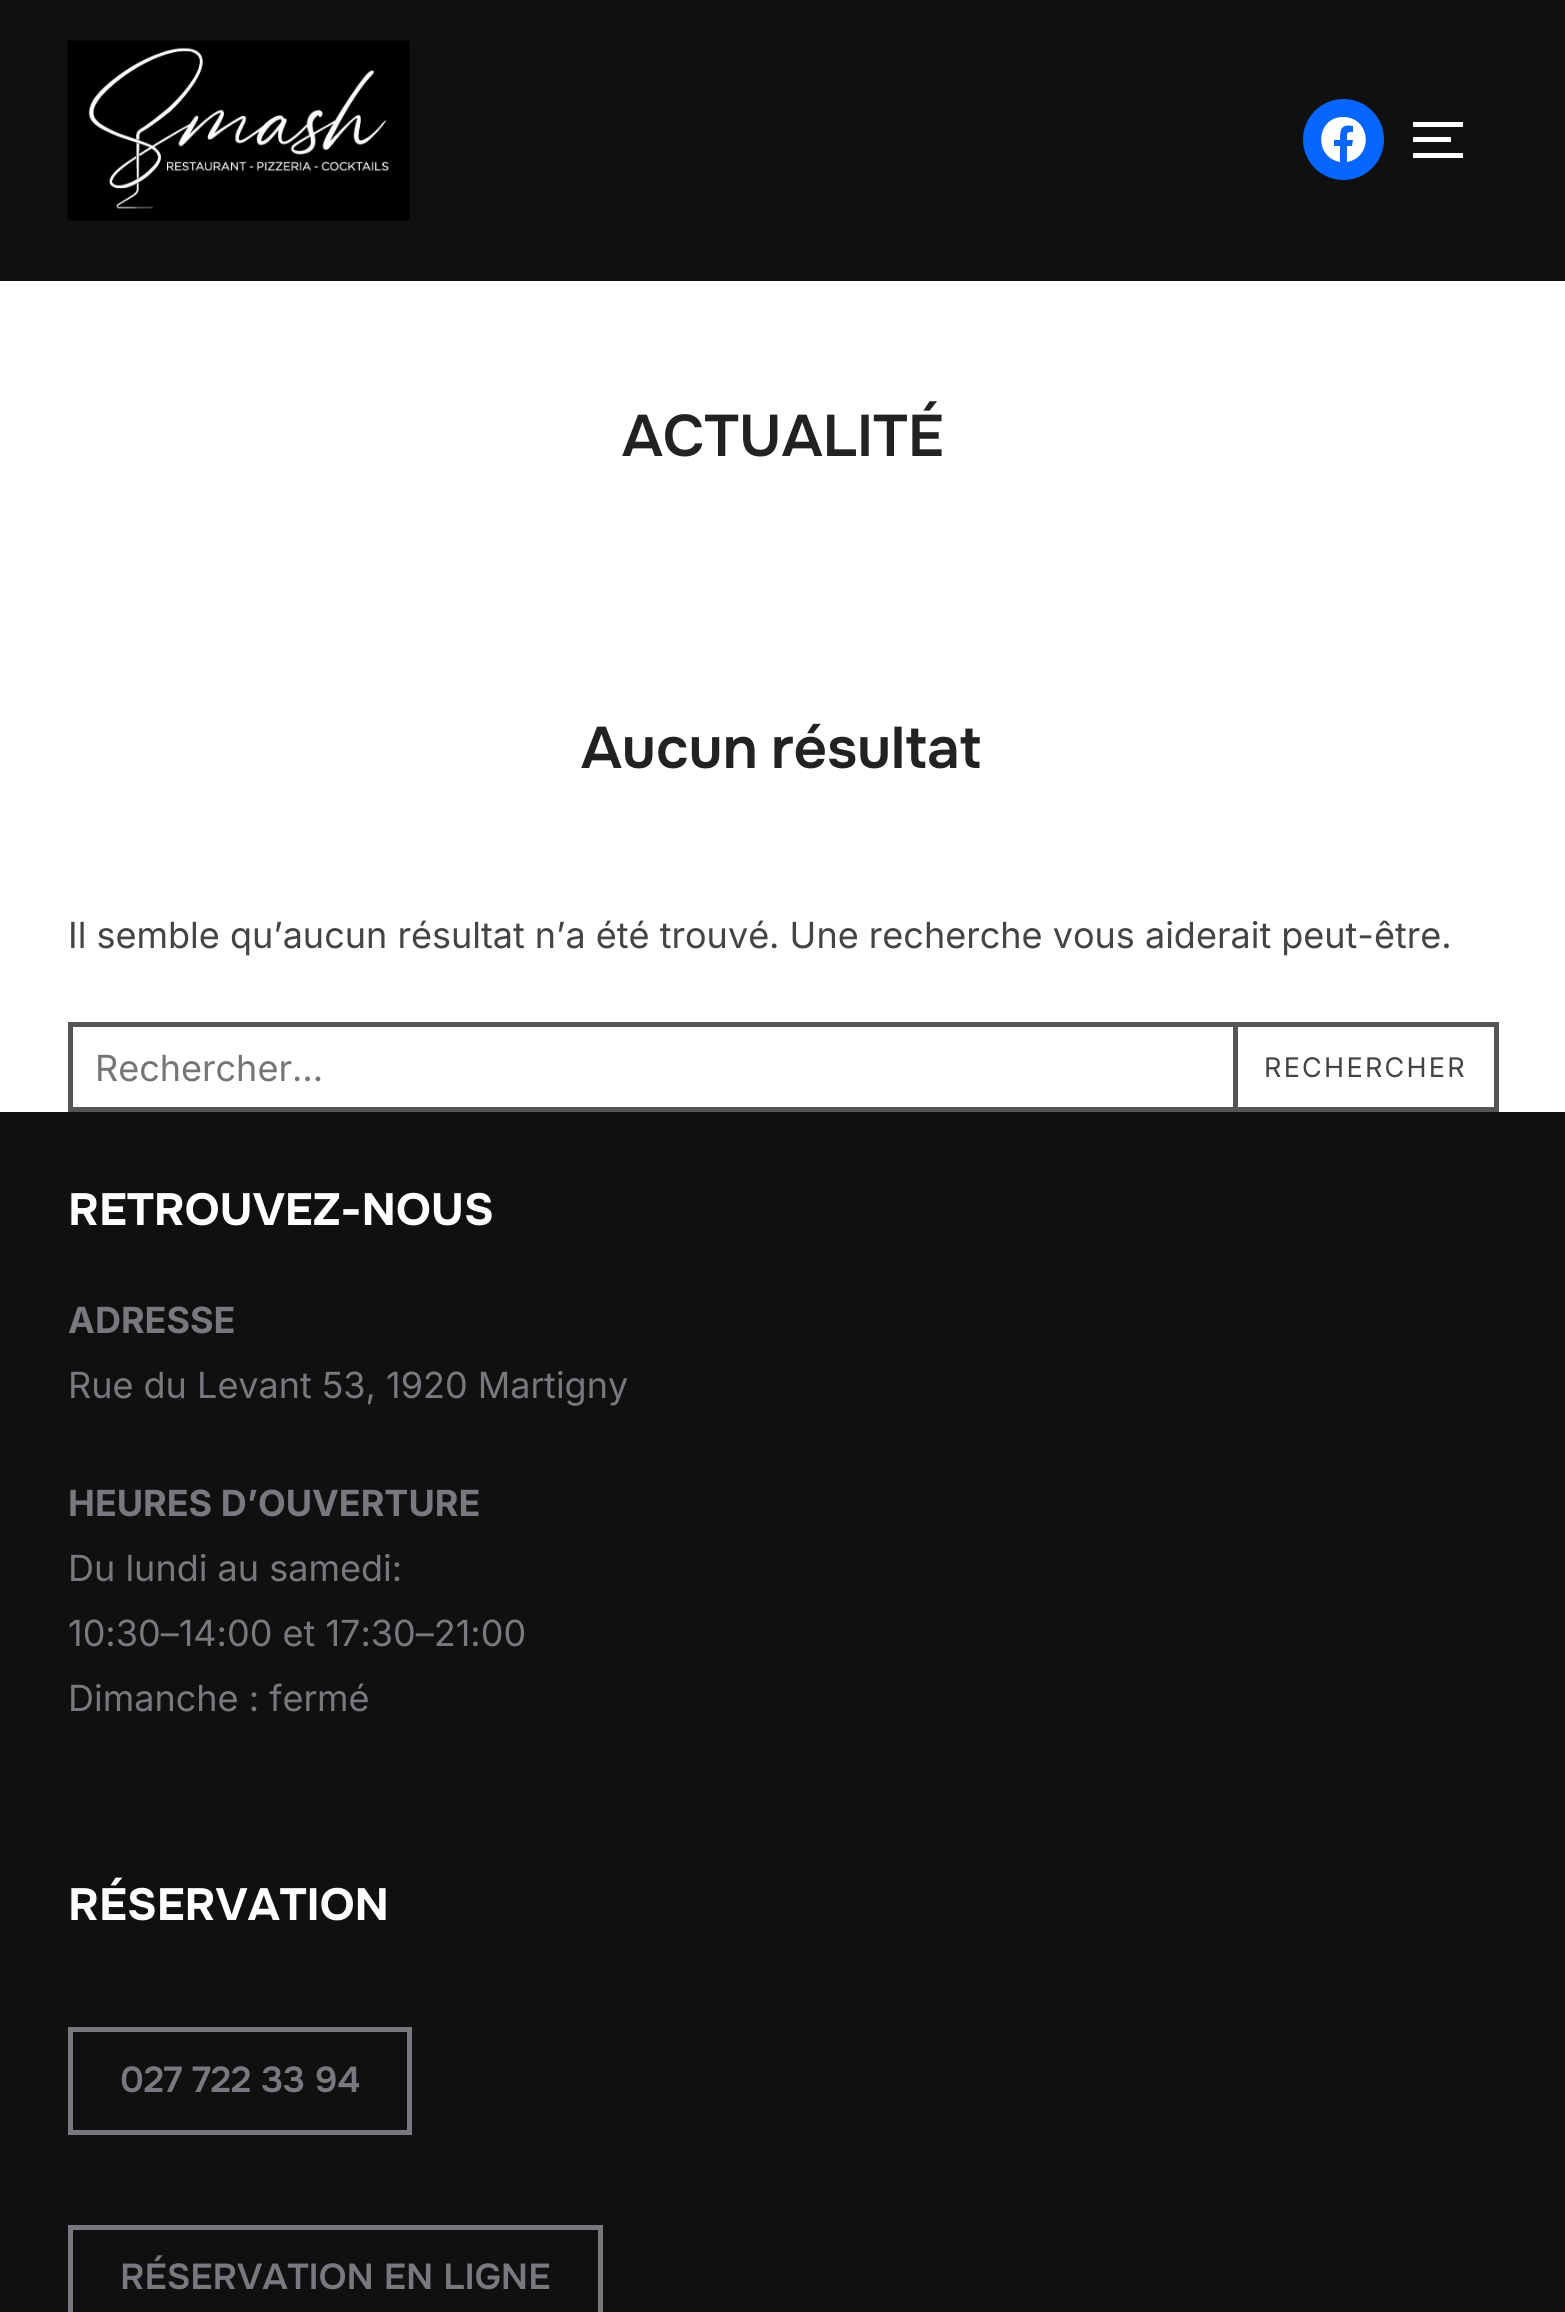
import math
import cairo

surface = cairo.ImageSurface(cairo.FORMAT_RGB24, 1565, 2312)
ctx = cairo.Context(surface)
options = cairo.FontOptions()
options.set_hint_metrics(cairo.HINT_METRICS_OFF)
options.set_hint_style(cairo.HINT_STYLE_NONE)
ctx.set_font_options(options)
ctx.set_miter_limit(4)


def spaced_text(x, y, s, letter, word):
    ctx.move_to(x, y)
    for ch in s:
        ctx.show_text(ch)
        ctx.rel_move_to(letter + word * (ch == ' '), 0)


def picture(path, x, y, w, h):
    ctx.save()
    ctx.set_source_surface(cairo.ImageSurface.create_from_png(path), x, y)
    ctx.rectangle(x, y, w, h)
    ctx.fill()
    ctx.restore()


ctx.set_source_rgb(1, 1, 1)
ctx.paint()
ctx.set_source_rgb(0.063, 0.063, 0.063)
ctx.rectangle(0, 0, 1565, 281)
ctx.fill()
picture("img1.png", 67, 40, 343, 181)
ctx.set_source_rgb(0.031, 0.4, 1)
ctx.arc(1343.5, 139.5, 40.5, 0, 2 * math.pi)
ctx.fill()
ctx.set_source_rgb(1, 1, 1)
ctx.new_path()
ctx.move_to(1343, 117)
ctx.curve_to(1316, 117, 1313, 157, 1340, 162)
ctx.line_to(1340, 146)
ctx.line_to(1334, 146)
ctx.line_to(1334, 140)
ctx.line_to(1340, 140)
ctx.curve_to(1340, 129, 1341, 124, 1353, 126)
ctx.line_to(1353, 132)
ctx.curve_to(1346, 132, 1347, 133, 1347, 140)
ctx.line_to(1353, 140)
ctx.line_to(1352, 146)
ctx.line_to(1347, 146)
ctx.line_to(1347, 162)
ctx.curve_to(1374, 157, 1371, 117, 1343, 117)
ctx.close_path()
ctx.fill()
ctx.rectangle(1413, 122, 50, 5)
ctx.fill()
ctx.rectangle(1413, 137, 38, 5)
ctx.fill()
ctx.rectangle(1413, 153, 50, 5)
ctx.fill()
ctx.select_font_face("Onest SemiBold")
ctx.set_font_size(58.5)
ctx.set_source_rgb(0.133, 0.133, 0.133)
ctx.move_to(622, 456)
ctx.show_text("ACTUALITÉ")
spaced_text(581, 768, "Aucun résultat", 0, -3)
ctx.select_font_face("Inter")
ctx.set_font_size(36)
ctx.set_source_rgb(0.267, 0.267, 0.267)
ctx.move_to(68, 948)
ctx.show_text("Il semble qu’aucun résultat n’a été trouvé. Une recherche vous aiderait peut-être.")
ctx.rectangle(70.5, 1024.5, 1426, 85)
ctx.set_source_rgb(0.337, 0.333, 0.333)
ctx.set_line_width(5)
ctx.stroke()
ctx.set_source_rgb(0.459, 0.459, 0.459)
ctx.move_to(95, 1081)
ctx.show_text("Rechercher…")
ctx.rectangle(1235.5, 1024.5, 261, 85)
ctx.set_source_rgb(0.337, 0.333, 0.333)
ctx.stroke()
ctx.set_font_size(27)
ctx.set_source_rgb(0.267, 0.267, 0.267)
spaced_text(1264, 1077, "RECHERCHER", 2.25, 0)
ctx.set_source_rgb(0.063, 0.063, 0.063)
ctx.rectangle(0, 1112, 1565, 1200)
ctx.fill()
ctx.select_font_face("Onest", cairo.FONT_SLANT_NORMAL, cairo.FONT_WEIGHT_BOLD)
ctx.set_font_size(45)
ctx.set_source_rgb(1, 1, 1)
ctx.move_to(68, 1225)
ctx.show_text("RETROUVEZ-NOUS")
ctx.select_font_face("Inter", cairo.FONT_SLANT_NORMAL, cairo.FONT_WEIGHT_BOLD)
ctx.set_font_size(36)
ctx.set_source_rgb(0.471, 0.471, 0.498)
ctx.move_to(68, 1333)
ctx.show_text("ADRESSE")
ctx.select_font_face("Inter")
ctx.move_to(68, 1398)
ctx.show_text("Rue du Levant 53, 1920 Martigny")
ctx.select_font_face("Inter", cairo.FONT_SLANT_NORMAL, cairo.FONT_WEIGHT_BOLD)
ctx.move_to(68, 1516)
ctx.show_text("HEURES D’OUVERTURE")
ctx.select_font_face("Inter")
ctx.move_to(68, 1581)
ctx.show_text("Du lundi au samedi:")
ctx.move_to(68, 1646)
ctx.show_text("10:30–14:00 et 17:30–21:00")
ctx.move_to(68, 1711)
ctx.show_text("Dimanche : fermé")
ctx.select_font_face("Onest", cairo.FONT_SLANT_NORMAL, cairo.FONT_WEIGHT_BOLD)
ctx.set_font_size(45)
ctx.set_source_rgb(1, 1, 1)
ctx.move_to(68, 1920)
ctx.show_text("RÉSERVATION")
ctx.rectangle(70.5, 2029.5, 339, 103)
ctx.set_source_rgb(0.471, 0.471, 0.498)
ctx.stroke()
ctx.select_font_face("Onest SemiBold")
ctx.set_font_size(36)
ctx.move_to(120, 2092)
ctx.show_text("027 722 33 94")
ctx.rectangle(70.5, 2227.5, 530, 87)
ctx.stroke()
ctx.move_to(120, 2289)
ctx.show_text("RÉSERVATION EN LIGNE")
surface.write_to_png("page.png")
